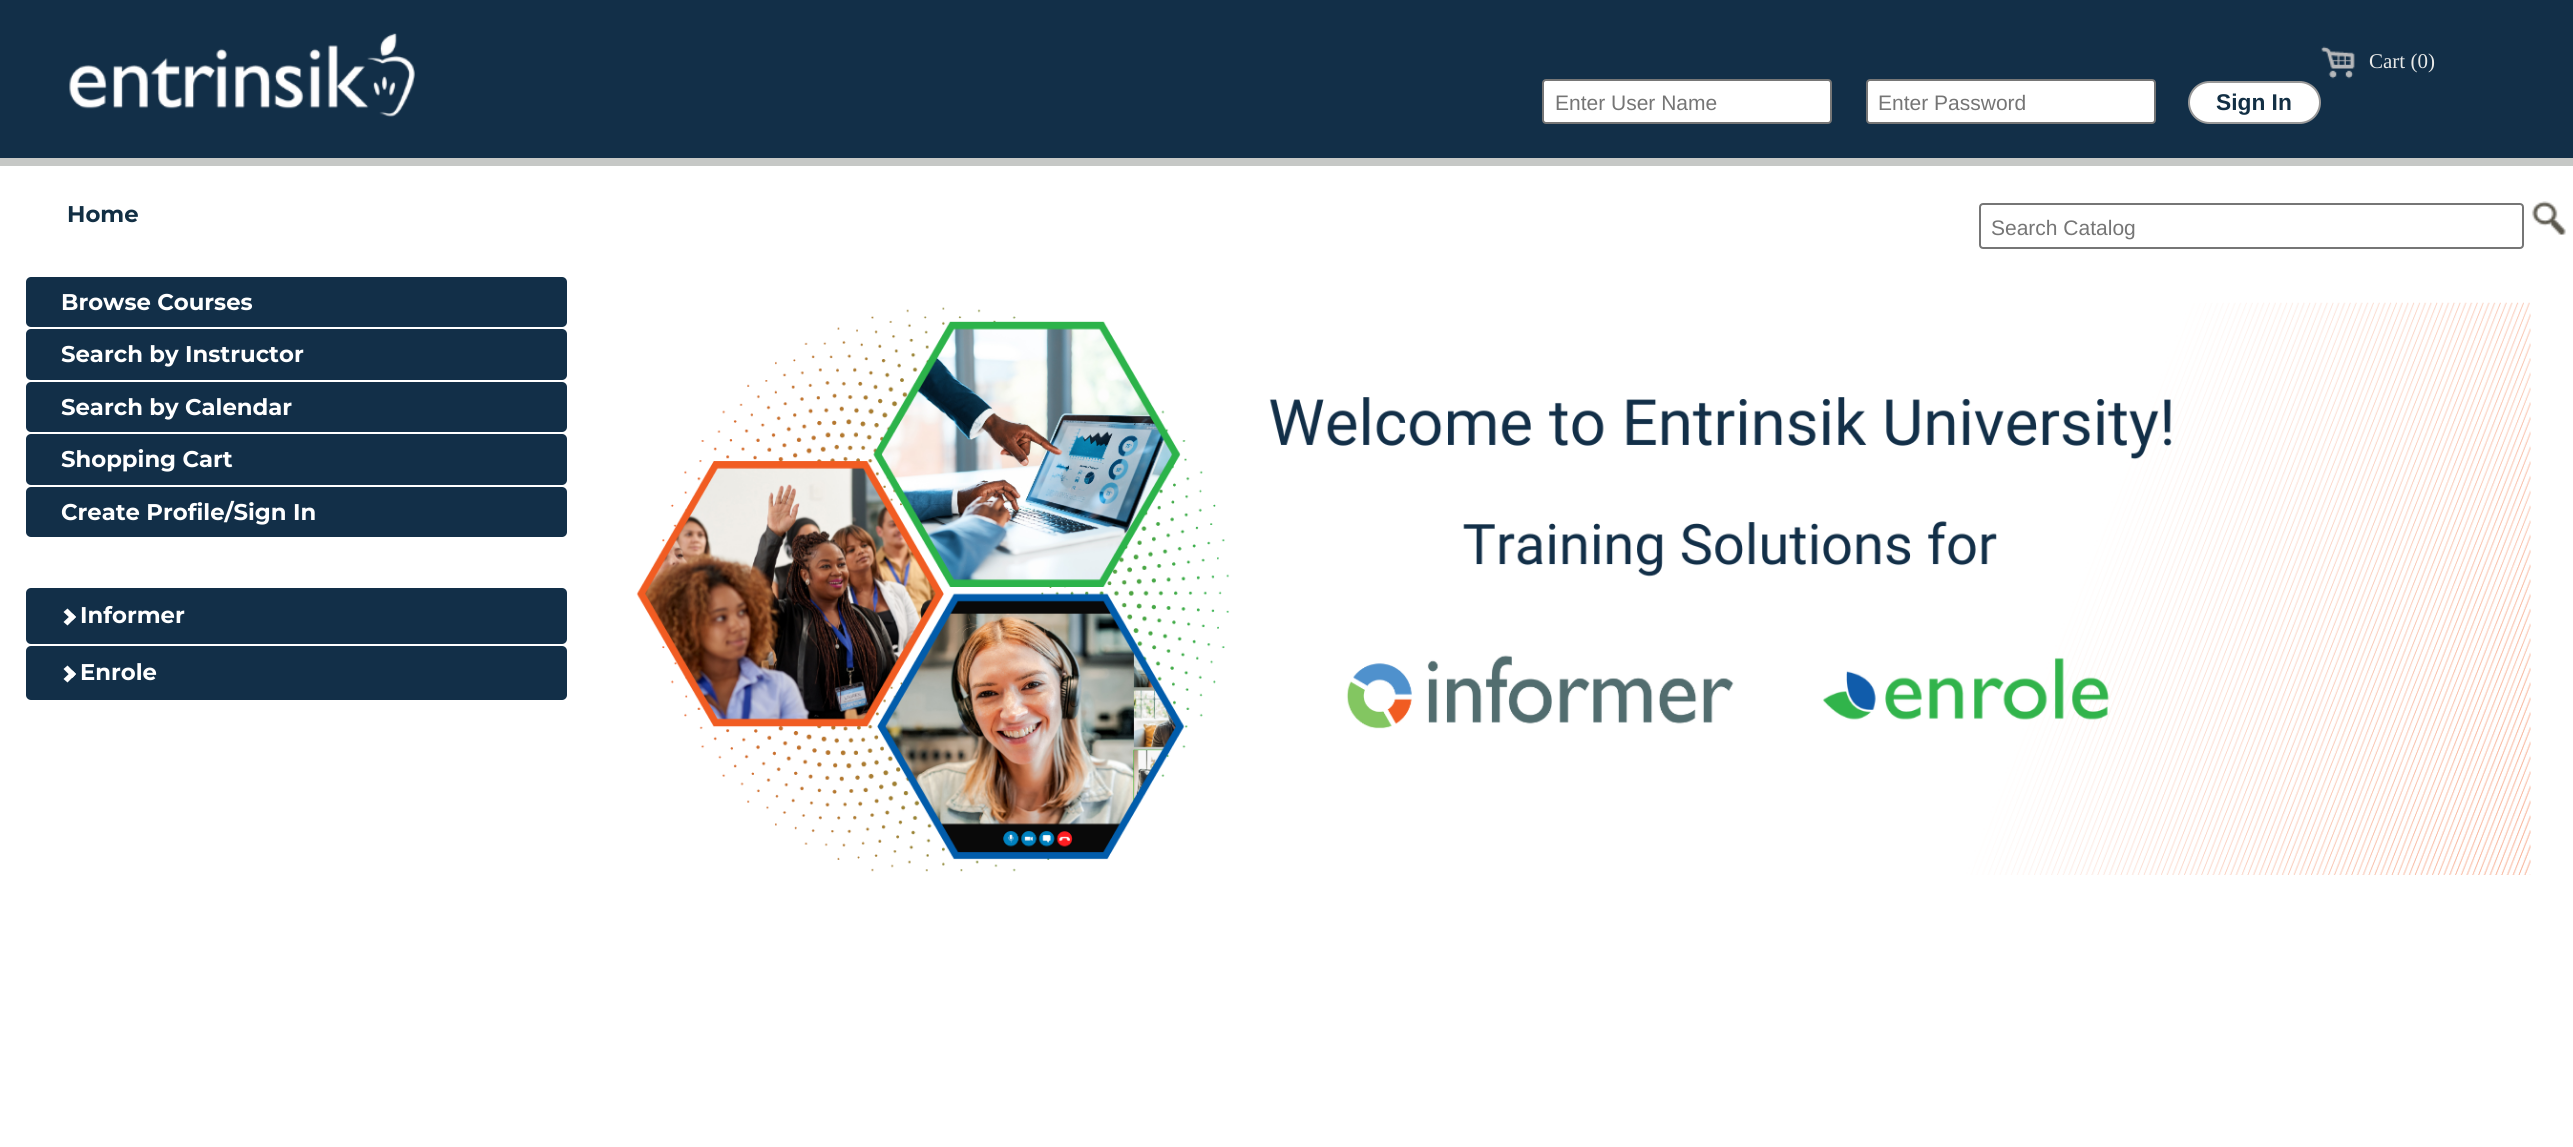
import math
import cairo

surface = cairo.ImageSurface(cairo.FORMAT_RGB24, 2573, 1147)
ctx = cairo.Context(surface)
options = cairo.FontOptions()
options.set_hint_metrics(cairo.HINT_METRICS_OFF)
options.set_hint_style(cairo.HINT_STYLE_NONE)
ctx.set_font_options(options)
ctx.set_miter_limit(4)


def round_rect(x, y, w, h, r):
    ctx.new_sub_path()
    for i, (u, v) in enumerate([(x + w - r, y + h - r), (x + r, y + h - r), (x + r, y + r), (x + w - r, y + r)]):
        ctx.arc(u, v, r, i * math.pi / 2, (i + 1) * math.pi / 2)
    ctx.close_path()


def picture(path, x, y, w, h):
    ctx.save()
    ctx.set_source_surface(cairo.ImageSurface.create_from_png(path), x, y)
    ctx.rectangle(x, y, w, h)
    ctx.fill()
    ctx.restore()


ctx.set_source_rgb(1, 1, 1)
ctx.paint()
ctx.set_source_rgb(0.071, 0.184, 0.282)
ctx.rectangle(0, 0, 2573, 158)
ctx.fill()
ctx.set_source_rgb(0.776, 0.784, 0.776)
ctx.rectangle(0, 158, 2573, 8)
ctx.fill()
picture("img1.png", 69, 33, 346, 84)
picture("img2.png", 2321, 46, 34, 33)
ctx.select_font_face("Liberation Serif")
ctx.set_font_size(21)
ctx.set_source_rgb(0.91, 0.914, 0.91)
ctx.move_to(2369, 68)
ctx.show_text("Cart (0)")
ctx.set_source_rgb(1, 1, 1)
round_rect(1543, 80, 288, 43, 3)
ctx.fill_preserve()
ctx.set_source_rgb(0.463, 0.463, 0.463)
ctx.stroke()
ctx.select_font_face("Liberation Sans")
ctx.set_source_rgb(0.459, 0.459, 0.459)
ctx.move_to(1555, 110)
ctx.show_text("Enter User Name")
ctx.set_source_rgb(1, 1, 1)
round_rect(1867, 80, 288, 43, 3)
ctx.fill_preserve()
ctx.set_source_rgb(0.463, 0.463, 0.463)
ctx.stroke()
ctx.set_source_rgb(0.459, 0.459, 0.459)
ctx.move_to(1878, 110)
ctx.show_text("Enter Password")
ctx.set_source_rgb(1, 1, 1)
round_rect(2189, 82, 131, 41, 20.5)
ctx.fill_preserve()
ctx.set_source_rgb(0.6, 0.6, 0.6)
ctx.stroke()
ctx.select_font_face("Liberation Sans", cairo.FONT_SLANT_NORMAL, cairo.FONT_WEIGHT_BOLD)
ctx.set_font_size(22.75)
ctx.set_source_rgb(0.071, 0.184, 0.267)
ctx.move_to(2216, 110)
ctx.show_text("Sign In")
ctx.select_font_face("Montserrat", cairo.FONT_SLANT_NORMAL, cairo.FONT_WEIGHT_BOLD)
ctx.move_to(67, 222)
ctx.show_text("Home")
round_rect(1980, 204, 543, 44, 3)
ctx.set_source_rgb(0.463, 0.463, 0.463)
ctx.stroke()
ctx.select_font_face("Liberation Sans")
ctx.set_font_size(21)
ctx.set_source_rgb(0.459, 0.459, 0.459)
ctx.move_to(1991, 235)
ctx.show_text("Search Catalog")
picture("img3.png", 2531, 201, 35, 34)
ctx.set_source_rgb(0.071, 0.184, 0.282)
round_rect(26, 277, 541, 50, 5)
ctx.fill()
ctx.select_font_face("Montserrat", cairo.FONT_SLANT_NORMAL, cairo.FONT_WEIGHT_BOLD)
ctx.set_font_size(22.75)
ctx.set_source_rgb(1, 1, 1)
ctx.move_to(61, 310)
ctx.show_text("Browse Courses")
ctx.set_source_rgb(0.071, 0.184, 0.282)
round_rect(26, 329, 541, 51, 5)
ctx.fill()
ctx.set_source_rgb(1, 1, 1)
ctx.move_to(61, 362)
ctx.show_text("Search by Instructor")
ctx.set_source_rgb(0.071, 0.184, 0.282)
round_rect(26, 382, 541, 50, 5)
ctx.fill()
ctx.set_source_rgb(1, 1, 1)
ctx.move_to(61, 415)
ctx.show_text("Search by Calendar")
ctx.set_source_rgb(0.071, 0.184, 0.282)
round_rect(26, 434, 541, 51, 5)
ctx.fill()
ctx.set_source_rgb(1, 1, 1)
ctx.move_to(61, 467)
ctx.show_text("Shopping Cart")
ctx.set_source_rgb(0.071, 0.184, 0.282)
round_rect(26, 487, 541, 50, 5)
ctx.fill()
ctx.set_source_rgb(1, 1, 1)
ctx.move_to(61, 520)
ctx.show_text("Create Profile/Sign In")
ctx.set_source_rgb(0.071, 0.184, 0.282)
round_rect(26, 588, 541, 56, 5)
ctx.fill()
ctx.set_source_rgb(1, 1, 1)
ctx.new_path()
ctx.move_to(63.5, 612)
ctx.line_to(67.5, 608.5)
ctx.line_to(76, 617)
ctx.line_to(72.5, 620.5)
ctx.close_path()
ctx.fill()
ctx.new_path()
ctx.move_to(63.5, 622)
ctx.line_to(72.5, 613.5)
ctx.line_to(76, 617)
ctx.line_to(67.5, 625.5)
ctx.close_path()
ctx.fill()
ctx.move_to(80, 623)
ctx.show_text("Informer")
ctx.set_source_rgb(0.071, 0.184, 0.282)
round_rect(26, 646, 541, 54, 5)
ctx.fill()
ctx.set_source_rgb(1, 1, 1)
ctx.new_path()
ctx.move_to(63.5, 669)
ctx.line_to(67.5, 665.5)
ctx.line_to(76, 674)
ctx.line_to(72.5, 678)
ctx.close_path()
ctx.fill()
ctx.new_path()
ctx.move_to(63.5, 679)
ctx.line_to(72.5, 670.5)
ctx.line_to(76, 674)
ctx.line_to(67.5, 682.5)
ctx.close_path()
ctx.fill()
ctx.move_to(80, 680)
ctx.show_text("Enrole")
picture("img4.png", 636, 302, 1895, 573)
surface.write_to_png("page.png")
